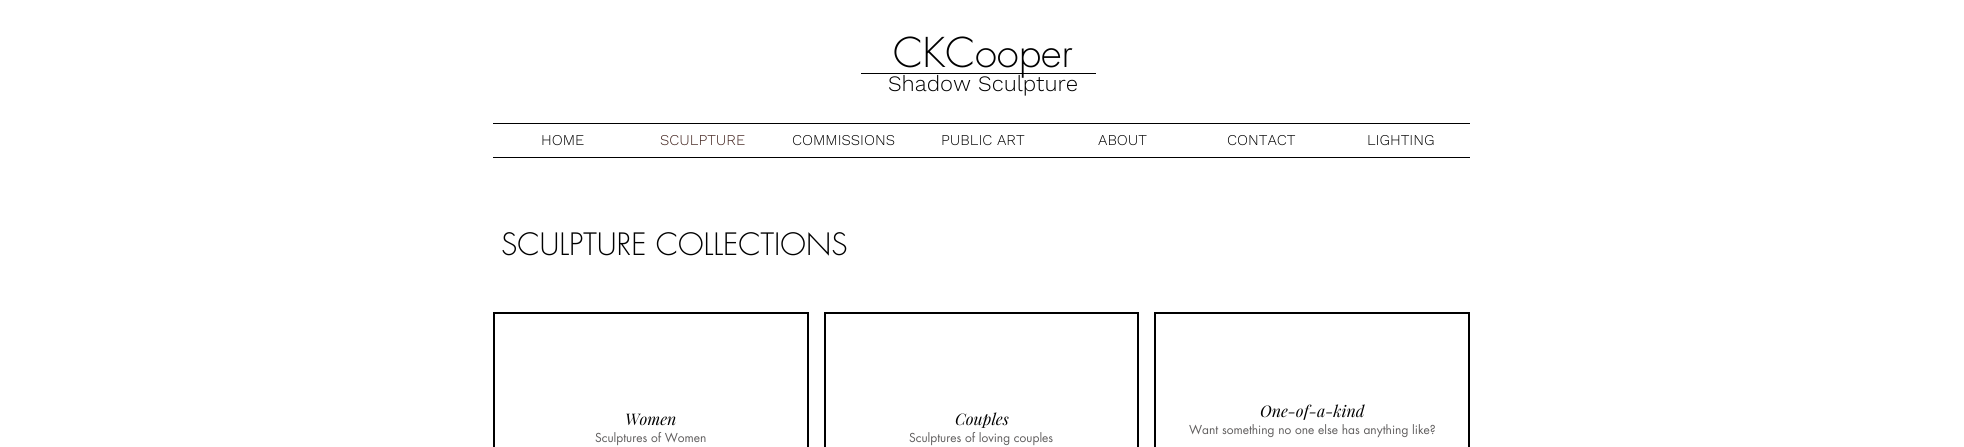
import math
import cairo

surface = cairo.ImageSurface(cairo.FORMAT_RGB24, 1964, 447)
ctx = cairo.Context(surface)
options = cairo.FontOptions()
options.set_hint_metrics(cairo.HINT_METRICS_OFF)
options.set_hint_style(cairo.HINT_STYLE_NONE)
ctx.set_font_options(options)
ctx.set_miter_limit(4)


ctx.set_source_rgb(1, 1, 1)
ctx.paint()
ctx.select_font_face("futura Light")
ctx.set_font_size(40)
ctx.set_source_rgb(0, 0, 0)
ctx.move_to(893, 67)
ctx.show_text("CKCooper")
ctx.rectangle(861, 73, 235, 1)
ctx.fill()
ctx.select_font_face("Work Sans Light")
ctx.set_font_size(22)
ctx.move_to(888, 91)
ctx.show_text("Shadow Sculpture")
ctx.rectangle(493, 123, 977, 1)
ctx.fill()
ctx.rectangle(493, 157, 977, 1)
ctx.fill()
ctx.set_font_size(15)
ctx.move_to(541, 145)
ctx.show_text("HOME")
ctx.set_source_rgb(0.251, 0.129, 0.11)
ctx.move_to(660, 145)
ctx.show_text("SCULPTURE")
ctx.set_source_rgb(0, 0, 0)
ctx.move_to(792, 145)
ctx.show_text("COMMISSIONS")
ctx.move_to(941, 145)
ctx.show_text("PUBLIC ART")
ctx.move_to(1098, 145)
ctx.show_text("ABOUT")
ctx.move_to(1227, 145)
ctx.show_text("CONTACT")
ctx.move_to(1367, 145)
ctx.show_text("LIGHTING")
ctx.select_font_face("futura Light")
ctx.set_font_size(30)
ctx.move_to(501, 255)
ctx.show_text("SCULPTURE COLLECTIONS")
ctx.rectangle(494, 313, 314, 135)
ctx.stroke()
ctx.select_font_face("Playfair Display", cairo.FONT_SLANT_ITALIC)
ctx.set_font_size(16)
ctx.move_to(625, 425)
ctx.show_text("Women")
ctx.select_font_face("futura")
ctx.set_font_size(12)
ctx.set_source_rgb(0.376, 0.369, 0.369)
ctx.move_to(595, 442)
ctx.show_text("Sculptures of Women")
ctx.rectangle(825, 313, 313, 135)
ctx.set_source_rgb(0, 0, 0)
ctx.stroke()
ctx.select_font_face("Playfair Display", cairo.FONT_SLANT_ITALIC)
ctx.set_font_size(16)
ctx.move_to(955, 425)
ctx.show_text("Couples")
ctx.select_font_face("futura")
ctx.set_font_size(12)
ctx.set_source_rgb(0.376, 0.369, 0.369)
ctx.move_to(909, 442)
ctx.show_text("Sculptures of loving couples")
ctx.rectangle(1155, 313, 314, 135)
ctx.set_source_rgb(0, 0, 0)
ctx.stroke()
ctx.select_font_face("Playfair Display", cairo.FONT_SLANT_ITALIC)
ctx.set_font_size(16)
ctx.move_to(1260, 417)
ctx.show_text("One-of-a-kind")
ctx.select_font_face("futura")
ctx.set_font_size(12)
ctx.set_source_rgb(0.376, 0.369, 0.369)
ctx.move_to(1189, 434)
ctx.show_text("Want something no one else has anything like?")
surface.write_to_png("page.png")
